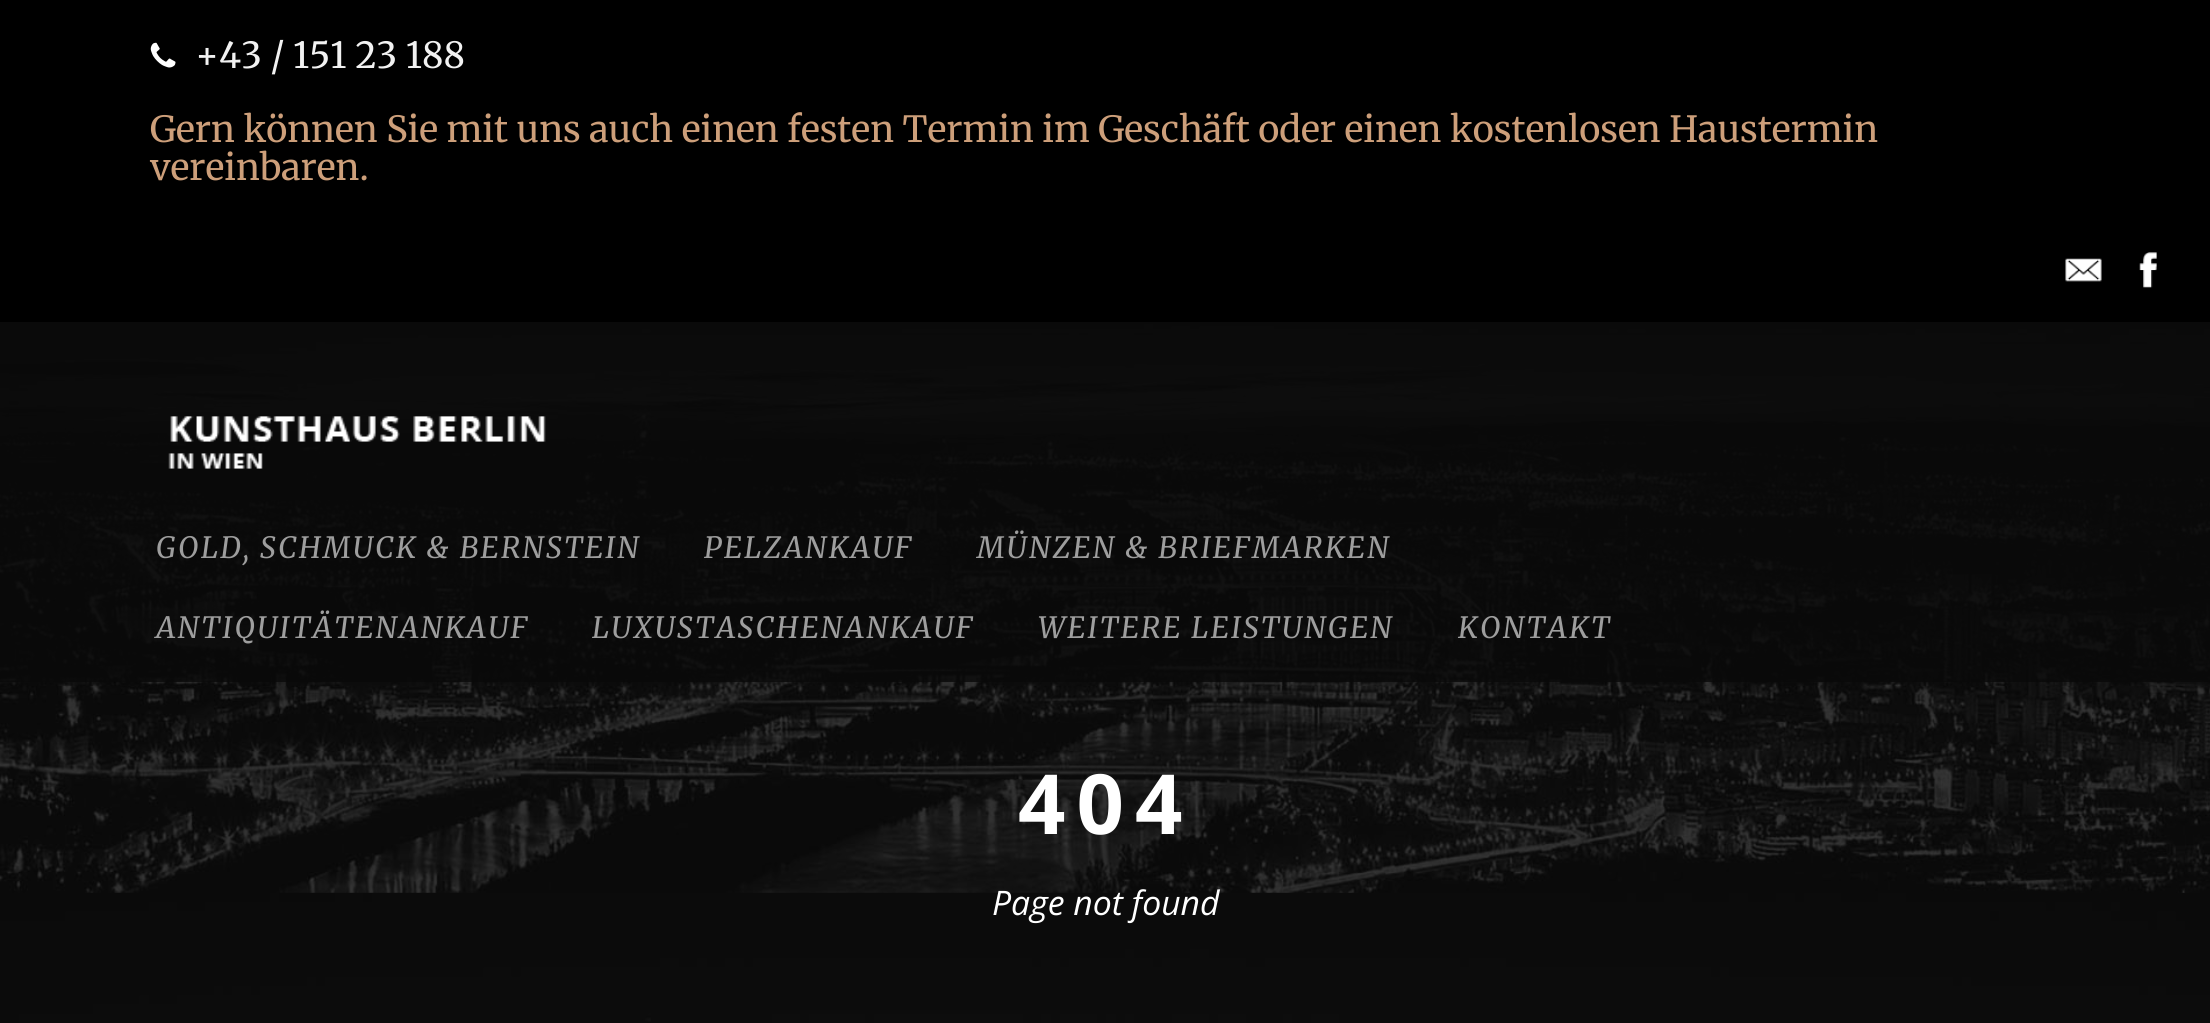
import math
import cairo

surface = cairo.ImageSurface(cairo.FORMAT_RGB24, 2210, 1023)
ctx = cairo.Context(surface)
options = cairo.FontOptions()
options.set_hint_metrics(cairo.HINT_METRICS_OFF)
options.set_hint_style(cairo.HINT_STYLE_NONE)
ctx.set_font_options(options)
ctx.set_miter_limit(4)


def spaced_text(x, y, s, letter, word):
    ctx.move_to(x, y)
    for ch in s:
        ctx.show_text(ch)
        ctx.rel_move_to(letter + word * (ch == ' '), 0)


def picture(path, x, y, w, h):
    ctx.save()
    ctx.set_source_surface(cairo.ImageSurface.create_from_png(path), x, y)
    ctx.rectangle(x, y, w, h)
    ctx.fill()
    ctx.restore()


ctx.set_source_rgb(1, 1, 1)
ctx.paint()
ctx.set_source_rgb(0, 0, 0)
ctx.rectangle(0, 0, 2210, 322)
ctx.fill()
picture("img1.png", 150, 42, 26, 26)
ctx.select_font_face("Merriweather")
ctx.set_font_size(36)
ctx.set_source_rgb(0.949, 0.949, 0.949)
ctx.move_to(195, 68)
ctx.show_text("+43 / 151 23 188")
ctx.set_source_rgb(0.804, 0.624, 0.478)
ctx.move_to(150, 142)
ctx.show_text("Gern können Sie mit uns auch einen festen Termin im Geschäft oder einen kostenlosen Haustermin")
ctx.move_to(150, 180)
ctx.show_text("vereinbaren.")
picture("img2.png", 2065, 258, 37, 24)
picture("img3.png", 2139, 252, 18, 36)
picture("img5.png", 0, 322, 2210, 701)
ctx.set_source_rgba(0.039, 0.039, 0.039, 0.8)
ctx.rectangle(0, 322, 2210, 360)
ctx.fill()
picture("img4.png", 168, 416, 378, 53)
ctx.select_font_face("Merriweather", cairo.FONT_SLANT_ITALIC)
ctx.set_font_size(29.25)
ctx.set_source_rgb(0.62, 0.62, 0.62)
spaced_text(156, 558, "GOLD, SCHMUCK & BERNSTEIN", 2.25, 0)
spaced_text(704, 558, "PELZANKAUF", 2.25, 0)
spaced_text(977, 558, "MÜNZEN & BRIEFMARKEN", 2.25, 0)
spaced_text(156, 638, "ANTIQUITÄTENANKAUF", 2.25, 0)
spaced_text(592, 638, "LUXUSTASCHENANKAUF", 2.25, 0)
spaced_text(1038, 638, "WEITERE LEISTUNGEN", 2.25, 0)
spaced_text(1458, 638, "KONTAKT", 2.25, 0)
ctx.select_font_face("Open Sans", cairo.FONT_SLANT_NORMAL, cairo.FONT_WEIGHT_BOLD)
ctx.set_font_size(83)
ctx.set_source_rgb(1, 1, 1)
spaced_text(1018, 834, "404", 11, 0)
ctx.select_font_face("Open Sans", cairo.FONT_SLANT_ITALIC)
ctx.set_font_size(33.75)
ctx.move_to(992, 915)
ctx.show_text("Page not found")
surface.write_to_png("page.png")
